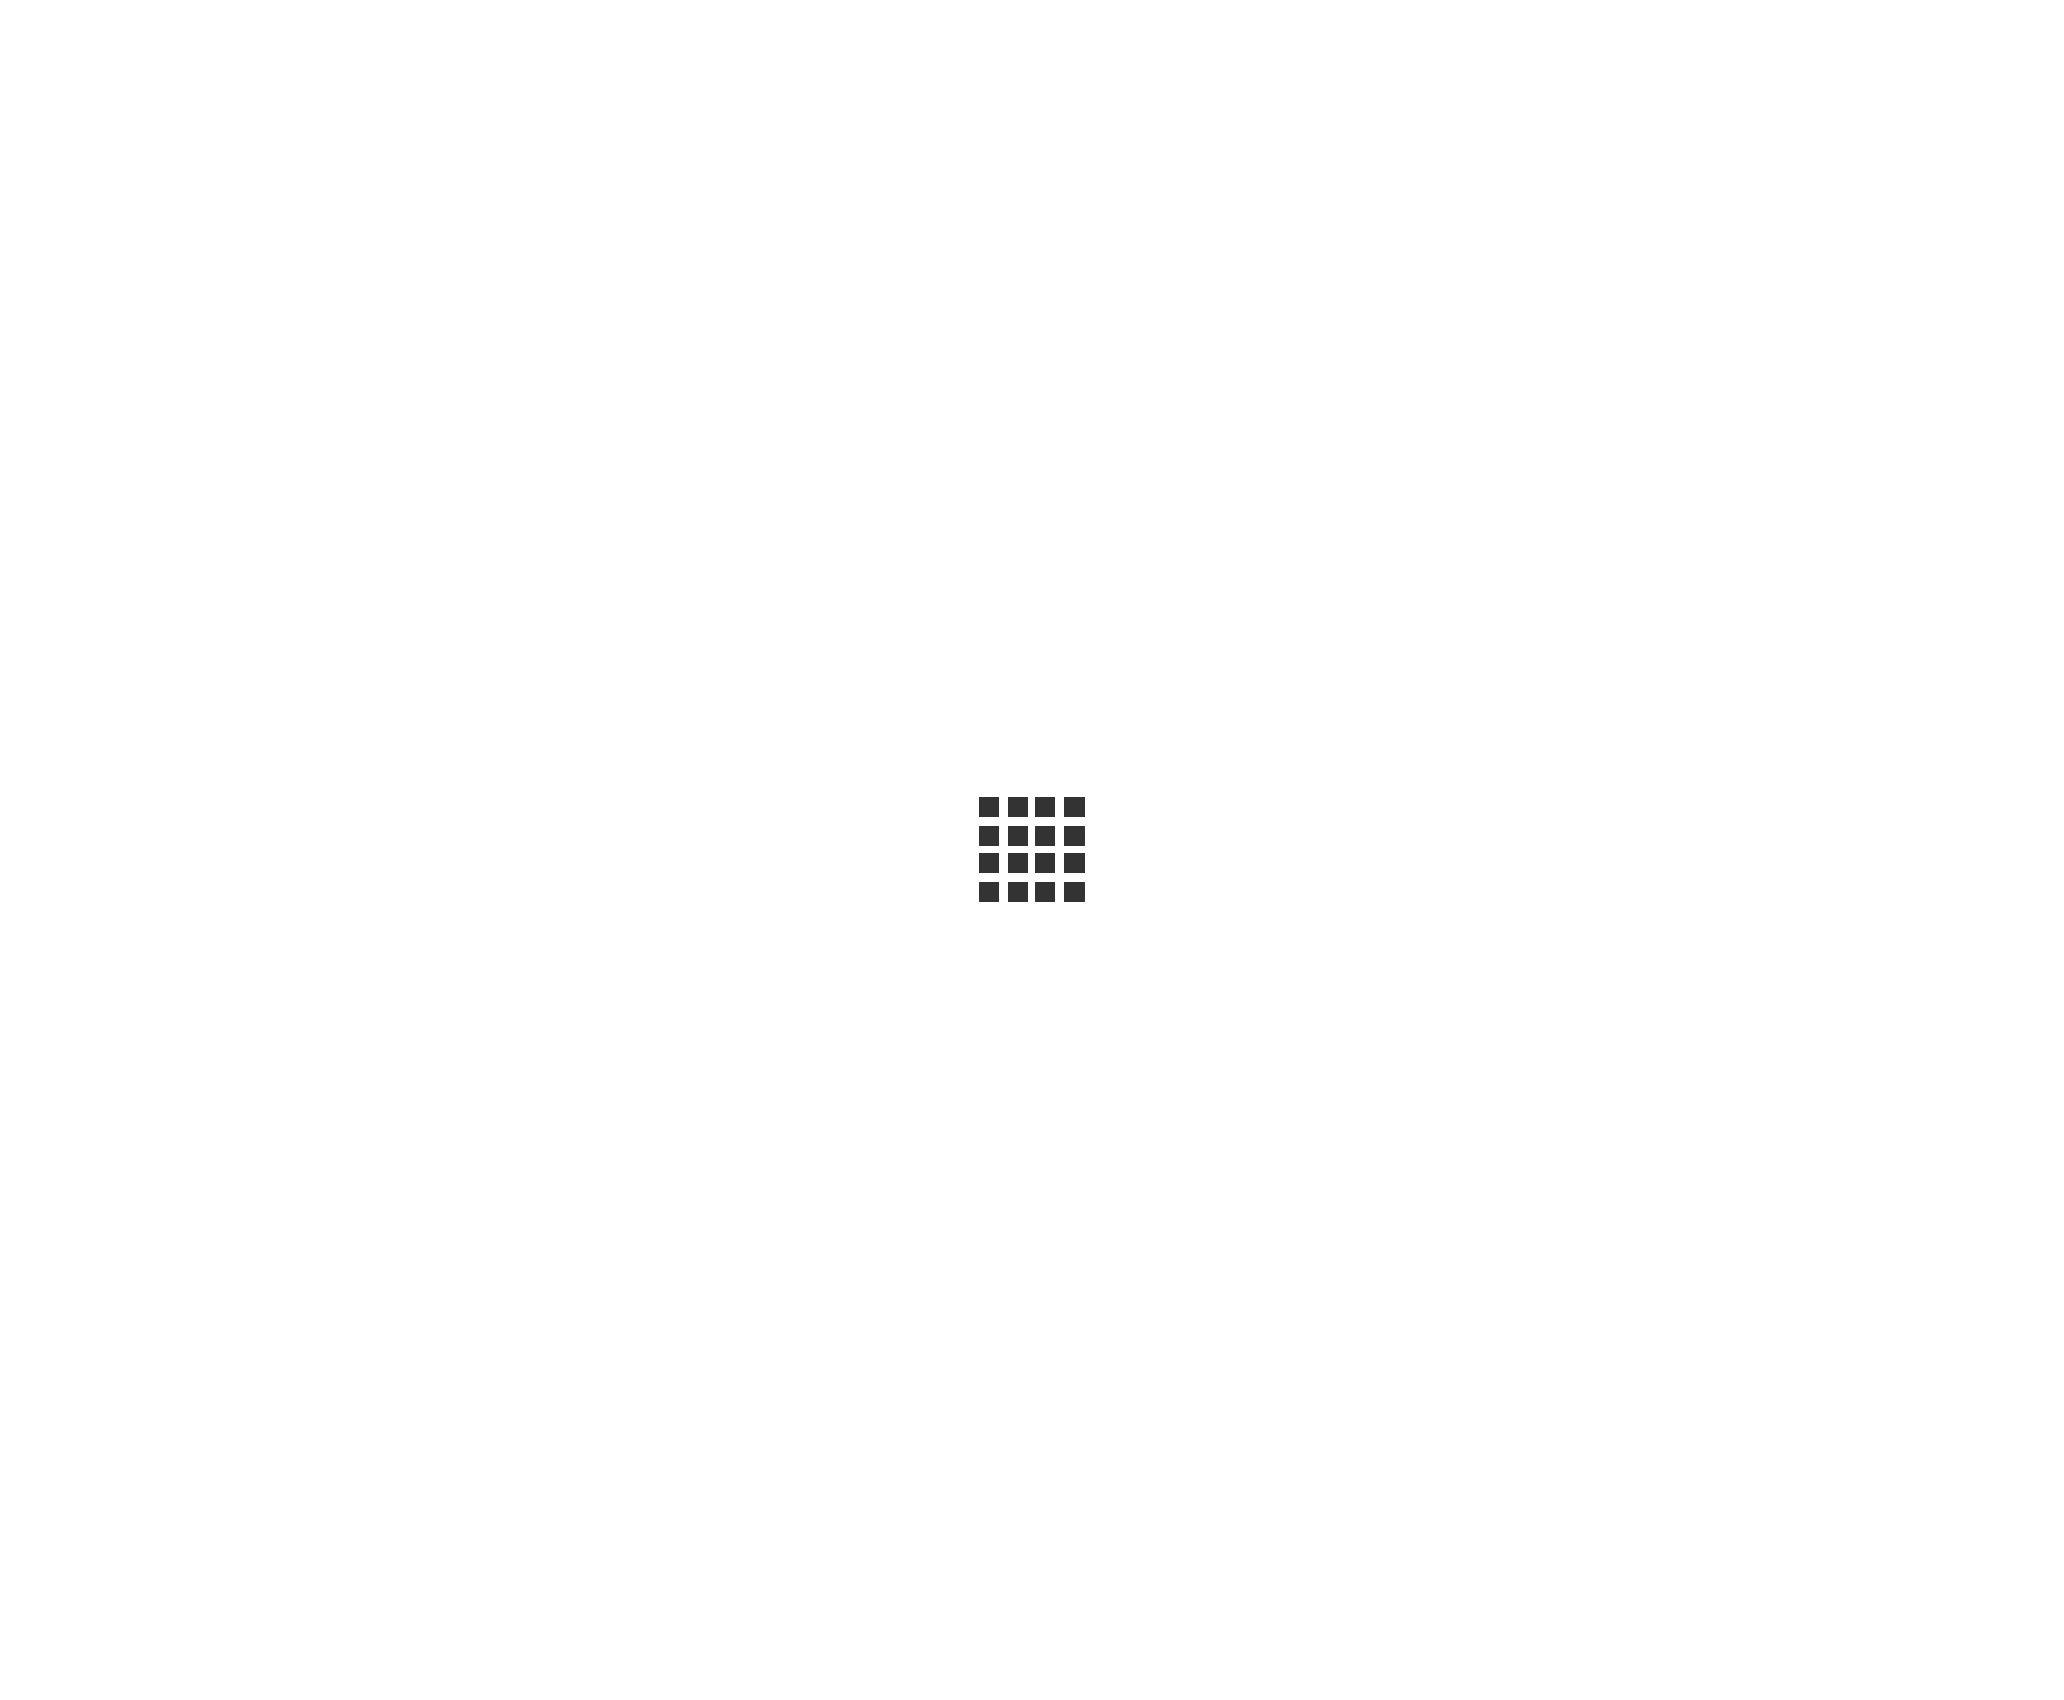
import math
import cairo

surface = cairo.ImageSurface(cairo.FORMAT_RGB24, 2064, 1700)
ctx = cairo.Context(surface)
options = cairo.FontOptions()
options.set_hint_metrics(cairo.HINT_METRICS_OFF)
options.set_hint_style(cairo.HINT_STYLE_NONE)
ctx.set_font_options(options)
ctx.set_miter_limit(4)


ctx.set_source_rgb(1, 1, 1)
ctx.paint()
ctx.set_source_rgb(0.2, 0.2, 0.2)
ctx.rectangle(979, 797, 20, 20)
ctx.fill()
ctx.rectangle(1008, 797, 20, 20)
ctx.fill()
ctx.rectangle(1035, 797, 20, 20)
ctx.fill()
ctx.rectangle(1064, 797, 21, 20)
ctx.fill()
ctx.rectangle(979, 826, 20, 20)
ctx.fill()
ctx.rectangle(1008, 826, 20, 20)
ctx.fill()
ctx.rectangle(1035, 826, 20, 20)
ctx.fill()
ctx.rectangle(1064, 826, 21, 20)
ctx.fill()
ctx.rectangle(979, 853, 20, 20)
ctx.fill()
ctx.rectangle(1008, 853, 20, 20)
ctx.fill()
ctx.rectangle(1035, 853, 20, 20)
ctx.fill()
ctx.rectangle(1064, 853, 21, 20)
ctx.fill()
ctx.rectangle(979, 882, 20, 20)
ctx.fill()
ctx.rectangle(1008, 882, 20, 20)
ctx.fill()
ctx.rectangle(1035, 882, 20, 20)
ctx.fill()
ctx.rectangle(1064, 882, 21, 20)
ctx.fill()
surface.write_to_png("page.png")
